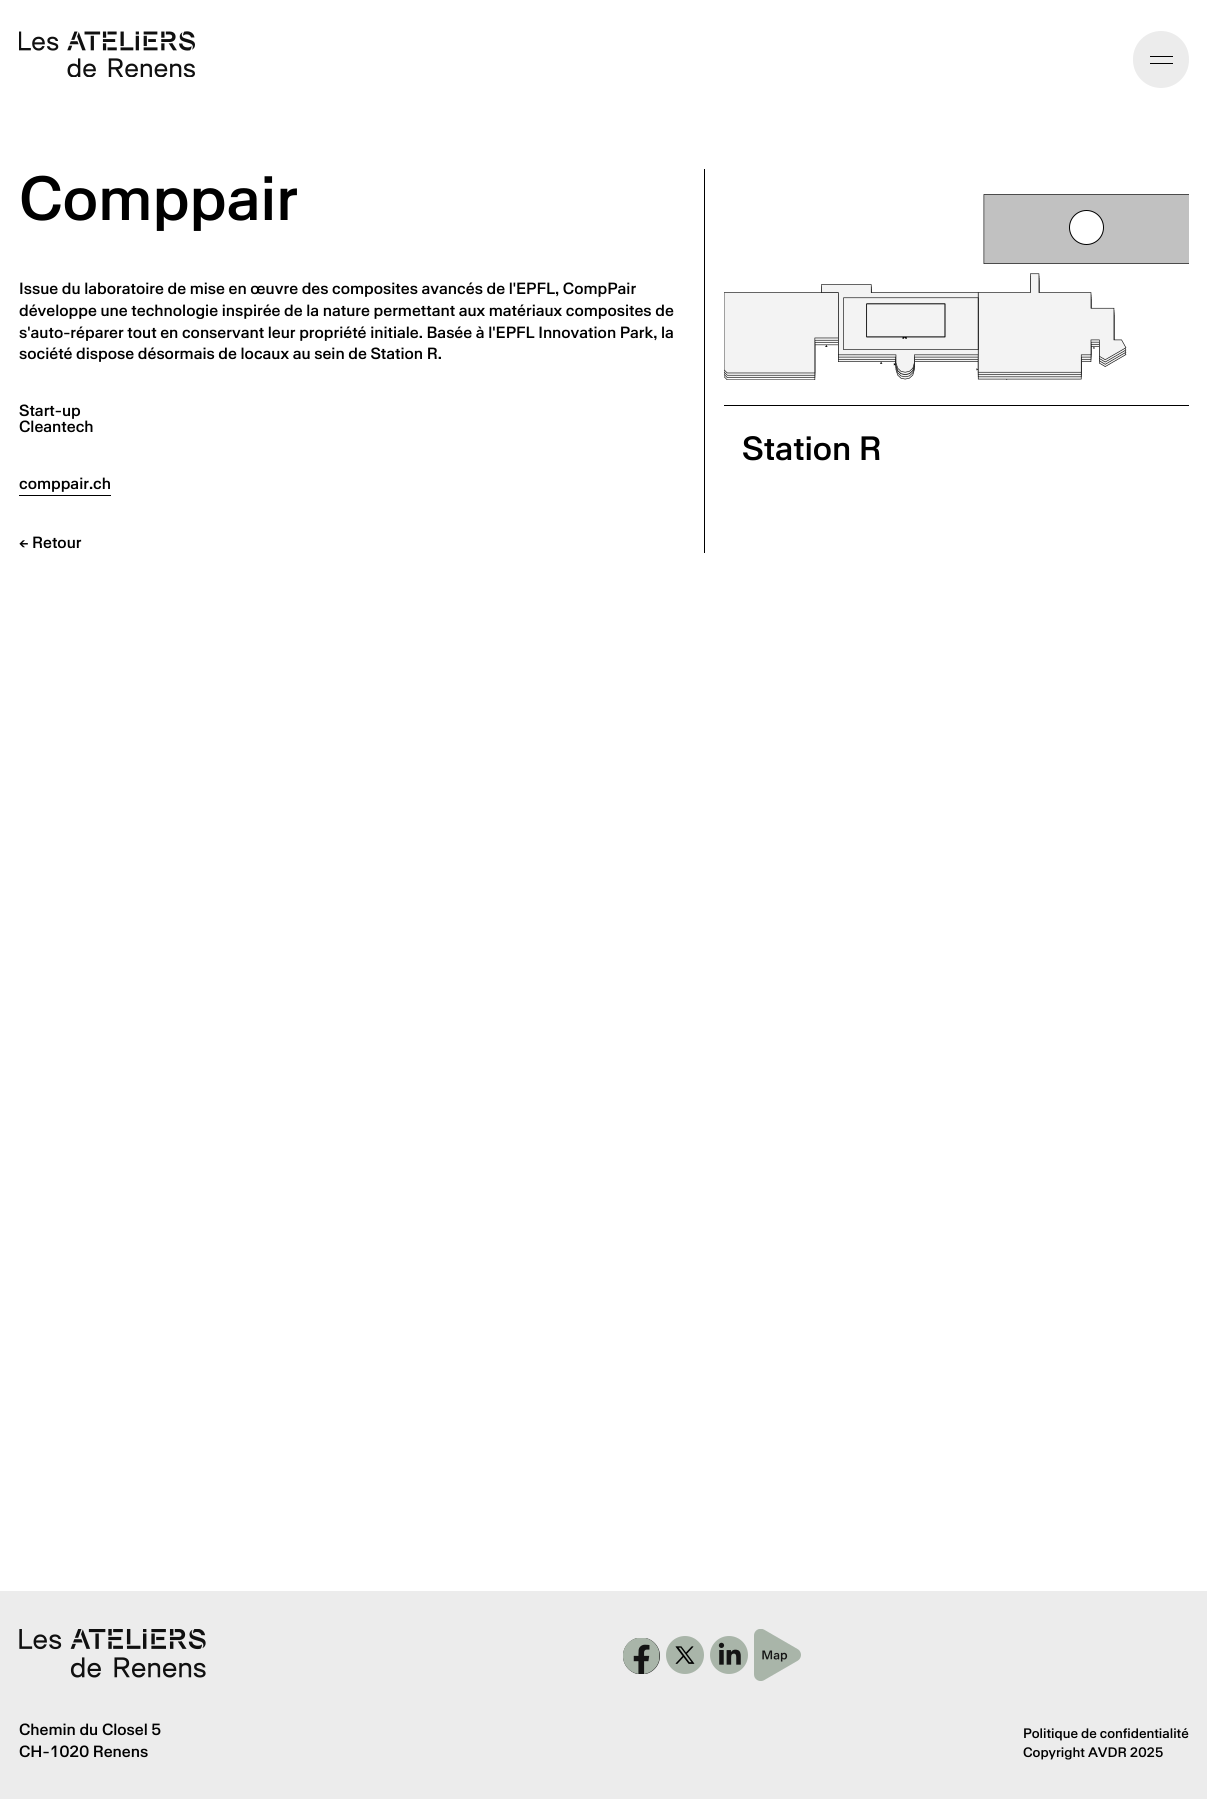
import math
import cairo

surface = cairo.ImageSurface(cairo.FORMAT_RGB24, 1207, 1799)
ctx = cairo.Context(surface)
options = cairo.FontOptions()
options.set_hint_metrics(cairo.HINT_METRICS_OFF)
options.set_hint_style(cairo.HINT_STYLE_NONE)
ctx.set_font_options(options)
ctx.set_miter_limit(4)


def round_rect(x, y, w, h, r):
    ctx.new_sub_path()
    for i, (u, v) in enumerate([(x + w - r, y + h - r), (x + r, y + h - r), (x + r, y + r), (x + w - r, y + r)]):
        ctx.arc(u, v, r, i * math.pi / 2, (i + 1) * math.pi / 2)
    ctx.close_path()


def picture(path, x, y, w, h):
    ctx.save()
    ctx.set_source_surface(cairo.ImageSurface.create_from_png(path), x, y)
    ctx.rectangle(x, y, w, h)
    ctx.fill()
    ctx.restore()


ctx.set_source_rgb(1, 1, 1)
ctx.paint()
picture("img1.png", 19, 31, 176, 46)
ctx.set_source_rgb(0.922, 0.922, 0.922)
round_rect(1133, 31, 56, 57, 28)
ctx.fill()
ctx.set_source_rgb(0, 0, 0)
ctx.rectangle(1150, 56, 23, 1)
ctx.fill()
ctx.rectangle(1150, 63, 23, 1)
ctx.fill()
ctx.rectangle(704, 169, 1, 384)
ctx.fill()
ctx.select_font_face("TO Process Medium")
ctx.set_font_size(62.5)
ctx.move_to(19, 220)
ctx.show_text("Comppair")
ctx.set_font_size(16.25)
ctx.move_to(19, 294)
ctx.show_text("Issue du laboratoire de mise en œuvre des composites avancés de l'EPFL, CompPair")
ctx.move_to(19, 316)
ctx.show_text("développe une technologie inspirée de la nature permettant aux matériaux composites de")
ctx.move_to(19, 338)
ctx.show_text("s'auto-réparer tout en conservant leur propriété initiale. Basée à l'EPFL Innovation Park, la")
ctx.move_to(19, 359)
ctx.show_text("société dispose désormais de locaux au sein de Station R.")
ctx.move_to(19, 416)
ctx.show_text("Start-up")
ctx.move_to(19, 432)
ctx.show_text("Cleantech")
ctx.move_to(19, 489)
ctx.show_text("comppair.ch")
ctx.rectangle(19, 495, 92, 1)
ctx.fill()
ctx.move_to(19, 548)
ctx.show_text("← Retour")
picture("img2.png", 724, 194, 465, 186)
ctx.set_source_rgb(1, 1, 1)
ctx.arc(1086.5, 227.5, 17, 0, 2 * math.pi)
ctx.fill_preserve()
ctx.set_source_rgb(0, 0, 0)
ctx.set_line_width(1)
ctx.stroke()
ctx.rectangle(724, 405, 465, 1)
ctx.fill()
ctx.set_font_size(33.75)
ctx.move_to(742, 460)
ctx.show_text("Station R")
ctx.set_source_rgb(0.922, 0.922, 0.922)
ctx.rectangle(0, 1591, 1207, 208)
ctx.fill()
picture("img3.png", 19, 1629, 187, 49)
picture("img4.png", 623, 1638, 37, 36)
picture("img5.png", 666, 1636, 38, 38)
picture("img6.png", 710, 1636, 38, 38)
picture("img7.png", 754, 1629, 47, 52)
ctx.set_font_size(16.25)
ctx.set_source_rgb(0, 0, 0)
ctx.move_to(19, 1735)
ctx.show_text("Chemin du Closel 5")
ctx.move_to(19, 1757)
ctx.show_text("CH-1020 Renens")
ctx.set_font_size(13.75)
ctx.move_to(1023, 1738)
ctx.show_text("Politique de confidentialité")
ctx.move_to(1023, 1757)
ctx.show_text("Copyright AVDR 2025")
surface.write_to_png("page.png")
